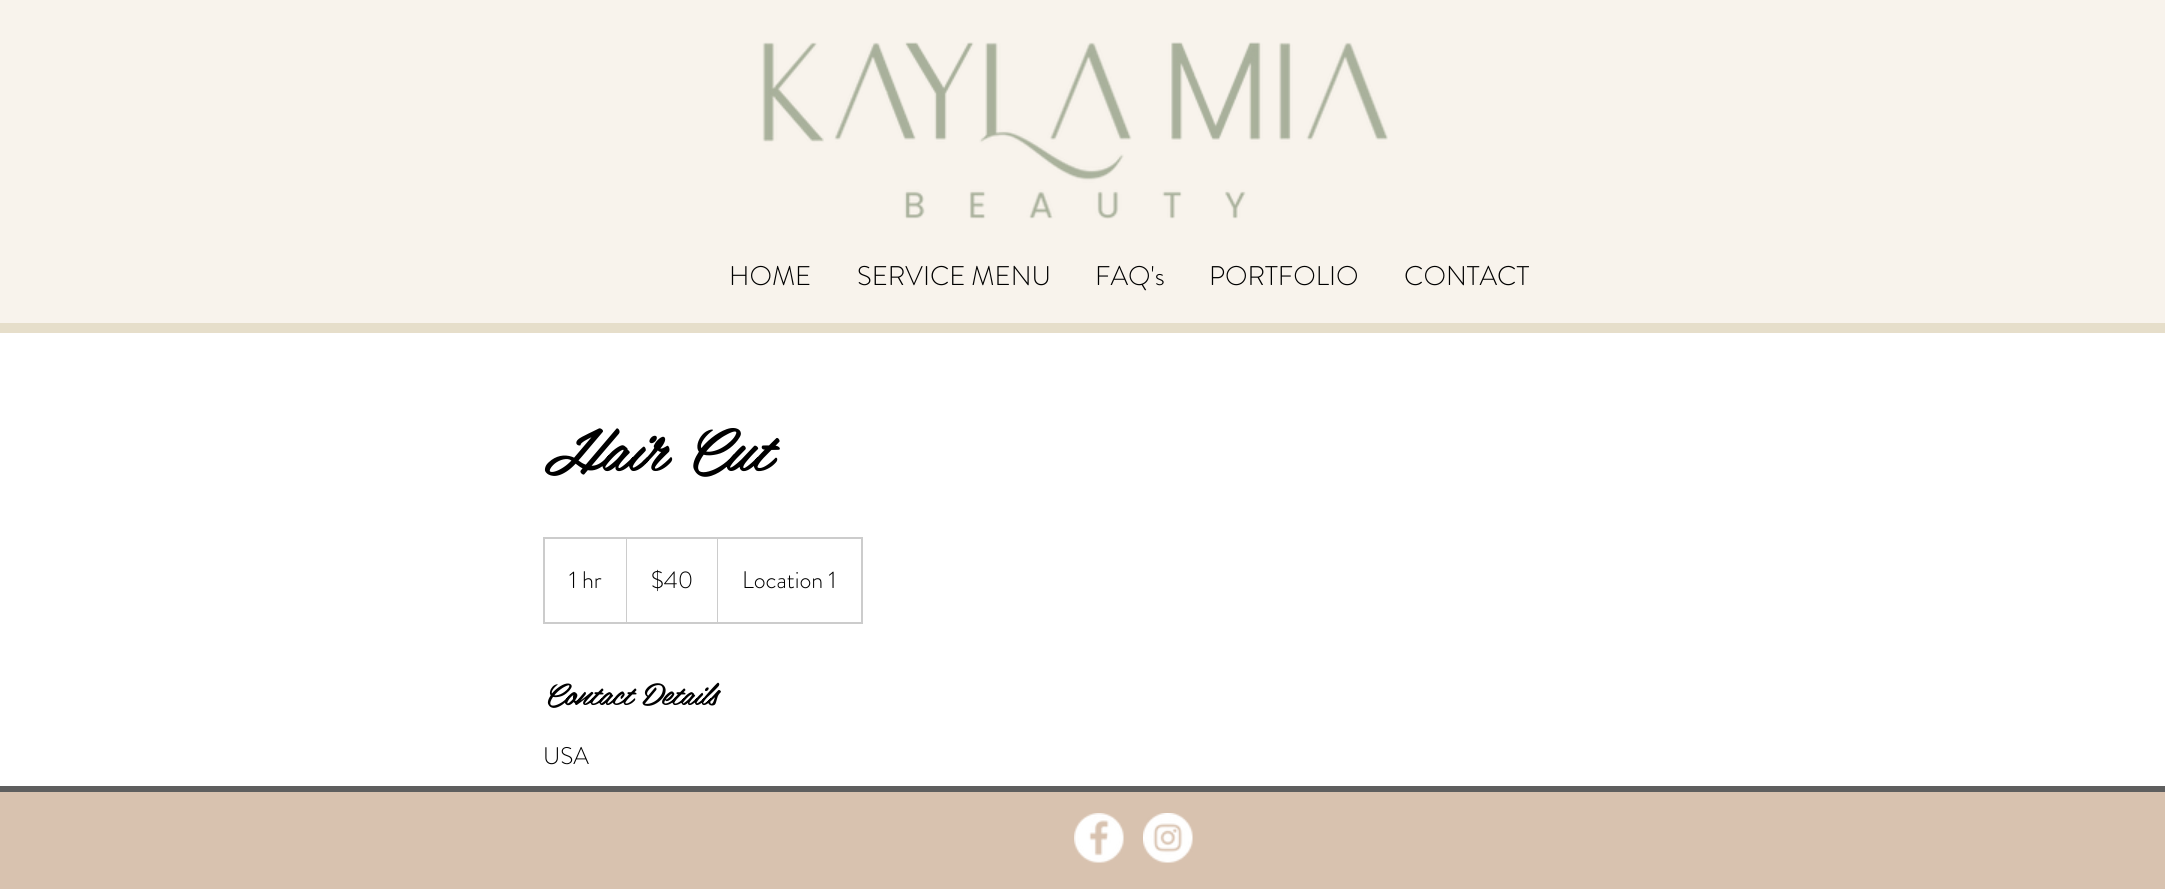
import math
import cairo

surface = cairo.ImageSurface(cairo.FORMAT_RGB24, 2165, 889)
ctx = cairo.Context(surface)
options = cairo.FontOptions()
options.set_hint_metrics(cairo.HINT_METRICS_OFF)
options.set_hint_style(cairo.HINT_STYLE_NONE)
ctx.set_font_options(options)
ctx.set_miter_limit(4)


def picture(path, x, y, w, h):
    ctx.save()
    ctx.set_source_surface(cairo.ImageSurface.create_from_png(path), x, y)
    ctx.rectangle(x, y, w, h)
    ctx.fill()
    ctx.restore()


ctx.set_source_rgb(1, 1, 1)
ctx.paint()
ctx.set_source_rgb(0.902, 0.871, 0.792)
ctx.rectangle(0, 323, 2165, 10)
ctx.fill()
ctx.set_source_rgb(0.969, 0.953, 0.922)
ctx.rectangle(0, 0, 2165, 323)
ctx.fill()
picture("img1.png", 762, 42, 626, 177)
ctx.select_font_face("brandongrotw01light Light")
ctx.set_font_size(27)
ctx.set_source_rgb(0, 0, 0)
ctx.move_to(729, 285)
ctx.show_text("HOME")
ctx.move_to(857, 285)
ctx.show_text("SERVICE MENU")
ctx.move_to(1095, 285)
ctx.show_text("FAQ's")
ctx.move_to(1209, 285)
ctx.show_text("PORTFOLIO")
ctx.move_to(1404, 285)
ctx.show_text("CONTACT")
ctx.select_font_face("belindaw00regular", cairo.FONT_SLANT_ITALIC)
ctx.set_font_size(60)
ctx.move_to(543, 471)
ctx.show_text("Hair Cut")
ctx.rectangle(544, 538, 318, 85)
ctx.set_source_rgb(0.8, 0.8, 0.8)
ctx.stroke()
ctx.select_font_face("brandongrotw01light Light")
ctx.set_font_size(24)
ctx.set_source_rgb(0, 0, 0)
ctx.move_to(569, 588)
ctx.show_text("1 hr")
ctx.set_source_rgb(0.8, 0.8, 0.8)
ctx.new_path()
ctx.move_to(626, 622)
ctx.line_to(626, 537)
ctx.line_to(627, 538)
ctx.line_to(627, 622)
ctx.close_path()
ctx.fill()
ctx.set_source_rgb(0, 0, 0)
ctx.move_to(651, 588)
ctx.show_text("$40")
ctx.set_source_rgb(0.8, 0.8, 0.8)
ctx.new_path()
ctx.move_to(717, 622)
ctx.line_to(717, 537)
ctx.line_to(718, 538)
ctx.line_to(718, 622)
ctx.close_path()
ctx.fill()
ctx.set_source_rgb(0, 0, 0)
ctx.move_to(742, 588)
ctx.show_text("Location 1")
ctx.select_font_face("belindaw00regular", cairo.FONT_SLANT_ITALIC)
ctx.set_font_size(30)
ctx.move_to(543, 705)
ctx.show_text("Contact Details")
ctx.select_font_face("brandongrotw01light Light")
ctx.set_font_size(24)
ctx.move_to(543, 764)
ctx.show_text("USA")
ctx.set_source_rgb(0.847, 0.761, 0.686)
ctx.rectangle(0, 792, 2165, 97)
ctx.fill()
ctx.set_source_rgb(0.369, 0.369, 0.369)
ctx.rectangle(0, 786, 2165, 6)
ctx.fill()
picture("img2.png", 1074, 813, 50, 50)
picture("img3.png", 1143, 813, 50, 50)
surface.write_to_png("page.png")
